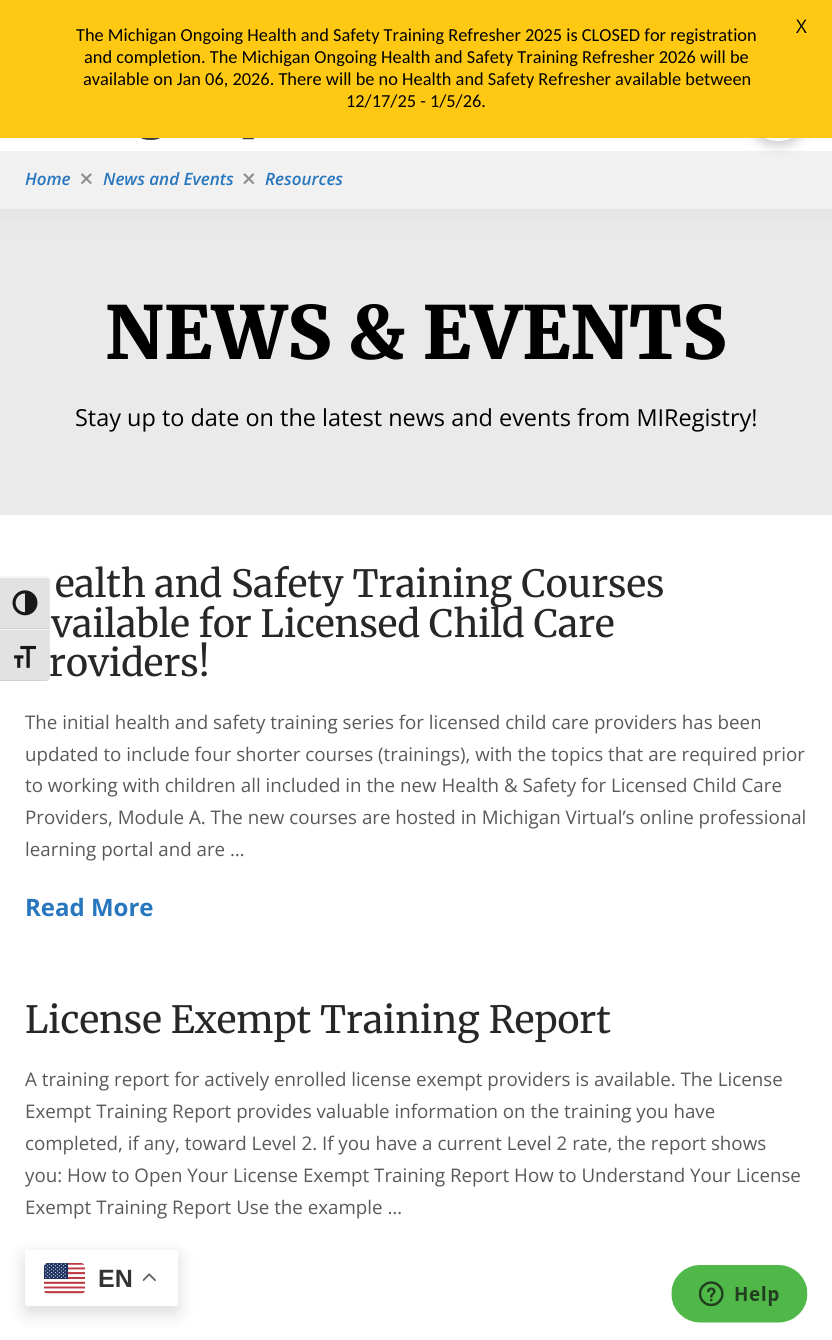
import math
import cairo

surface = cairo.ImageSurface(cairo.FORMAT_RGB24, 832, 1340)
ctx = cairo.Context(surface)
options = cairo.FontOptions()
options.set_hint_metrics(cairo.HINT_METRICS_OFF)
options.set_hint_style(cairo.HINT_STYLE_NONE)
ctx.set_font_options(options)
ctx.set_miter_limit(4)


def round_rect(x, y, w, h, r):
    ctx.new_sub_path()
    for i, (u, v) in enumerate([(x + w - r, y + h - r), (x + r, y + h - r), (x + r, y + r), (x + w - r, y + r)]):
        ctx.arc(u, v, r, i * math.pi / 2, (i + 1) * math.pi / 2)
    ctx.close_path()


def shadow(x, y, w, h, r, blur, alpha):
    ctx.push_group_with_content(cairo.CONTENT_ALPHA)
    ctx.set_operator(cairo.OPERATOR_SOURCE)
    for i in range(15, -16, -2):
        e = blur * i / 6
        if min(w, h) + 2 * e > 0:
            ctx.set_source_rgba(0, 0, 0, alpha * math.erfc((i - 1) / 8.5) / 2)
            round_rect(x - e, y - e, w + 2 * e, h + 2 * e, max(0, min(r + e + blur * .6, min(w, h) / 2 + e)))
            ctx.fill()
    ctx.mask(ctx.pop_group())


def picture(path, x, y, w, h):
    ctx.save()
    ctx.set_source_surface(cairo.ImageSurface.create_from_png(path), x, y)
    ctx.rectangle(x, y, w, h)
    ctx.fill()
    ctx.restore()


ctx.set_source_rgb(1, 1, 1)
ctx.paint()
ctx.save()
ctx.set_fill_rule(cairo.FILL_RULE_EVEN_ODD)
ctx.new_path()
ctx.move_to(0, 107)
ctx.line_to(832, 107)
ctx.line_to(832, 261)
ctx.line_to(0, 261)
ctx.close_path()
ctx.move_to(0, 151)
ctx.line_to(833, 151)
ctx.line_to(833, 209)
ctx.line_to(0, 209)
ctx.close_path()
ctx.clip()
ctx.set_source_rgb(0, 0, 0)
shadow(0, 155, 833, 58, 0, 15.5, 0.15)
ctx.restore()
ctx.set_source_rgb(1, 1, 1)
ctx.rectangle(0, 138, 832, 13)
ctx.fill()
ctx.set_source_rgba(0.643, 0.643, 0.643, 0.15)
ctx.rectangle(0, 151, 832, 58)
ctx.fill()
ctx.set_source_rgb(0, 0, 0)
shadow(748, 84, 60, 60, 30, 6.5, 0.25)
ctx.set_source_rgb(1, 1, 1)
ctx.arc(778, 111, 30, 0, 2 * math.pi)
ctx.fill()
ctx.set_source_rgb(1, 0.788, 0.078)
ctx.rectangle(0, 0, 832, 138)
ctx.fill()
ctx.select_font_face("Open Sans")
ctx.set_font_size(18.75)
ctx.set_source_rgb(0, 0, 0)
ctx.move_to(796, 33)
ctx.show_text("X")
ctx.select_font_face("Carlito")
ctx.set_font_size(18.35)
ctx.move_to(76, 41)
ctx.show_text("The Michigan Ongoing Health and Safety Training Refresher 2025 is CLOSED for registration")
ctx.move_to(84, 63)
ctx.show_text("and completion. The Michigan Ongoing Health and Safety Training Refresher 2026 will be")
ctx.move_to(83, 85)
ctx.show_text("available on Jan 06, 2026. There will be no Health and Safety Refresher available between")
ctx.move_to(346, 107)
ctx.show_text("12/17/25 - 1/5/26.")
picture("img1.png", 141, 138, 114, 2)
ctx.select_font_face("Open Sans SemiBold", cairo.FONT_SLANT_ITALIC)
ctx.set_font_size(17)
ctx.set_source_rgb(0.157, 0.463, 0.745)
ctx.move_to(25, 185)
ctx.show_text("Home")
picture("img2.png", 81, 173, 11, 11)
ctx.move_to(103, 185)
ctx.show_text("News and Events")
picture("img3.png", 243, 173, 12, 11)
ctx.move_to(265, 185)
ctx.show_text("Resources")
ctx.set_source_rgba(0.886, 0.886, 0.886, 0.75)
ctx.rectangle(0, 209, 832, 306)
ctx.fill()
ctx.select_font_face("Merriweather Black")
ctx.set_font_size(73.1)
ctx.set_source_rgb(0, 0, 0)
ctx.move_to(105, 359)
ctx.show_text("NEWS & EVENTS")
ctx.select_font_face("Open Sans")
ctx.set_font_size(23.45)
ctx.move_to(75, 426)
ctx.show_text("Stay up to date on the latest news and events from MIRegistry!")
ctx.select_font_face("Merriweather")
ctx.set_font_size(37.5)
ctx.set_source_rgb(0.153, 0.153, 0.153)
ctx.move_to(55, 597)
ctx.show_text("ealth and Safety Training Courses")
ctx.move_to(51, 637)
ctx.show_text("vailable for Licensed Child Care")
ctx.move_to(49, 676)
ctx.show_text("roviders!")
ctx.select_font_face("Open Sans")
ctx.set_font_size(18.75)
ctx.set_source_rgb(0.349, 0.349, 0.349)
ctx.move_to(25, 729)
ctx.show_text("The initial health and safety training series for licensed child care providers has been")
ctx.move_to(25, 761)
ctx.show_text("updated to include four shorter courses (trainings), with the topics that are required prior")
ctx.move_to(25, 792)
ctx.show_text("to working with children all included in the new Health & Safety for Licensed Child Care")
ctx.move_to(25, 824)
ctx.show_text("Providers, Module A. The new courses are hosted in Michigan Virtual’s online professional")
ctx.move_to(25, 856)
ctx.show_text("learning portal and are …")
ctx.select_font_face("Open Sans", cairo.FONT_SLANT_NORMAL, cairo.FONT_WEIGHT_BOLD)
ctx.set_font_size(24)
ctx.set_source_rgb(0.157, 0.463, 0.745)
ctx.move_to(25, 916)
ctx.show_text("Read More")
ctx.select_font_face("Merriweather")
ctx.set_font_size(37.5)
ctx.set_source_rgb(0.153, 0.153, 0.153)
ctx.move_to(25, 1033)
ctx.show_text("License Exempt Training Report")
ctx.select_font_face("Open Sans")
ctx.set_font_size(18.75)
ctx.set_source_rgb(0.349, 0.349, 0.349)
ctx.move_to(25, 1086)
ctx.show_text("A training report for actively enrolled license exempt providers is available. The License")
ctx.move_to(25, 1118)
ctx.show_text("Exempt Training Report provides valuable information on the training you have")
ctx.move_to(25, 1150)
ctx.show_text("completed, if any, toward Level 2. If you have a current Level 2 rate, the report shows")
ctx.move_to(25, 1182)
ctx.show_text("you: How to Open Your License Exempt Training Report How to Understand Your License")
ctx.move_to(25, 1214)
ctx.show_text("Exempt Training Report Use the example …")
ctx.set_source_rgb(0.886, 0.886, 0.886)
ctx.new_path()
ctx.move_to(0, 576)
ctx.line_to(45, 576)
ctx.curve_to(48, 576, 50, 578, 50, 581)
ctx.line_to(50, 629)
ctx.line_to(0, 629)
ctx.close_path()
ctx.fill()
ctx.set_source_rgb(0.961, 0.961, 0.961)
ctx.new_path()
ctx.move_to(0, 578)
ctx.line_to(45, 578)
ctx.curve_to(48, 578, 50, 579, 50, 581)
ctx.curve_to(50, 579, 49, 577, 47, 576)
ctx.line_to(0, 576)
ctx.close_path()
ctx.fill()
ctx.set_source_rgb(0.824, 0.824, 0.824)
ctx.rectangle(0, 628, 50, 1)
ctx.fill()
picture("img4.png", 12, 590, 26, 26)
ctx.set_source_rgb(0.886, 0.886, 0.886)
ctx.new_path()
ctx.move_to(0, 629)
ctx.line_to(50, 629)
ctx.line_to(50, 676)
ctx.curve_to(50, 679, 48, 681, 45, 681)
ctx.line_to(0, 681)
ctx.close_path()
ctx.fill()
ctx.set_source_rgb(0.961, 0.961, 0.961)
ctx.rectangle(0, 629, 50, 1)
ctx.fill()
ctx.set_source_rgb(0.824, 0.824, 0.824)
ctx.new_path()
ctx.move_to(0, 680)
ctx.line_to(0, 681)
ctx.line_to(45, 681)
ctx.curve_to(48, 681, 50, 679, 50, 676)
ctx.curve_to(50, 678, 48, 680, 45, 680)
ctx.close_path()
ctx.fill()
picture("img5.png", 14, 645, 22, 23)
ctx.set_source_rgb(0, 0, 0)
shadow(25, 1256, 153, 57, 2.5, 9.5, 0.15)
ctx.set_source_rgb(1, 1, 1)
round_rect(25, 1250, 153, 56, 2.5)
ctx.fill()
picture("img6.png", 44, 1263, 41, 31)
ctx.select_font_face("Liberation Sans", cairo.FONT_SLANT_NORMAL, cairo.FONT_WEIGHT_BOLD)
ctx.set_font_size(25)
ctx.set_source_rgb(0.2, 0.2, 0.2)
ctx.move_to(98, 1287)
ctx.show_text("EN")
picture("img7.png", 143, 1273, 13, 9)
picture("img8.png", 671, 1265, 137, 58)
surface.write_to_png("page.png")
